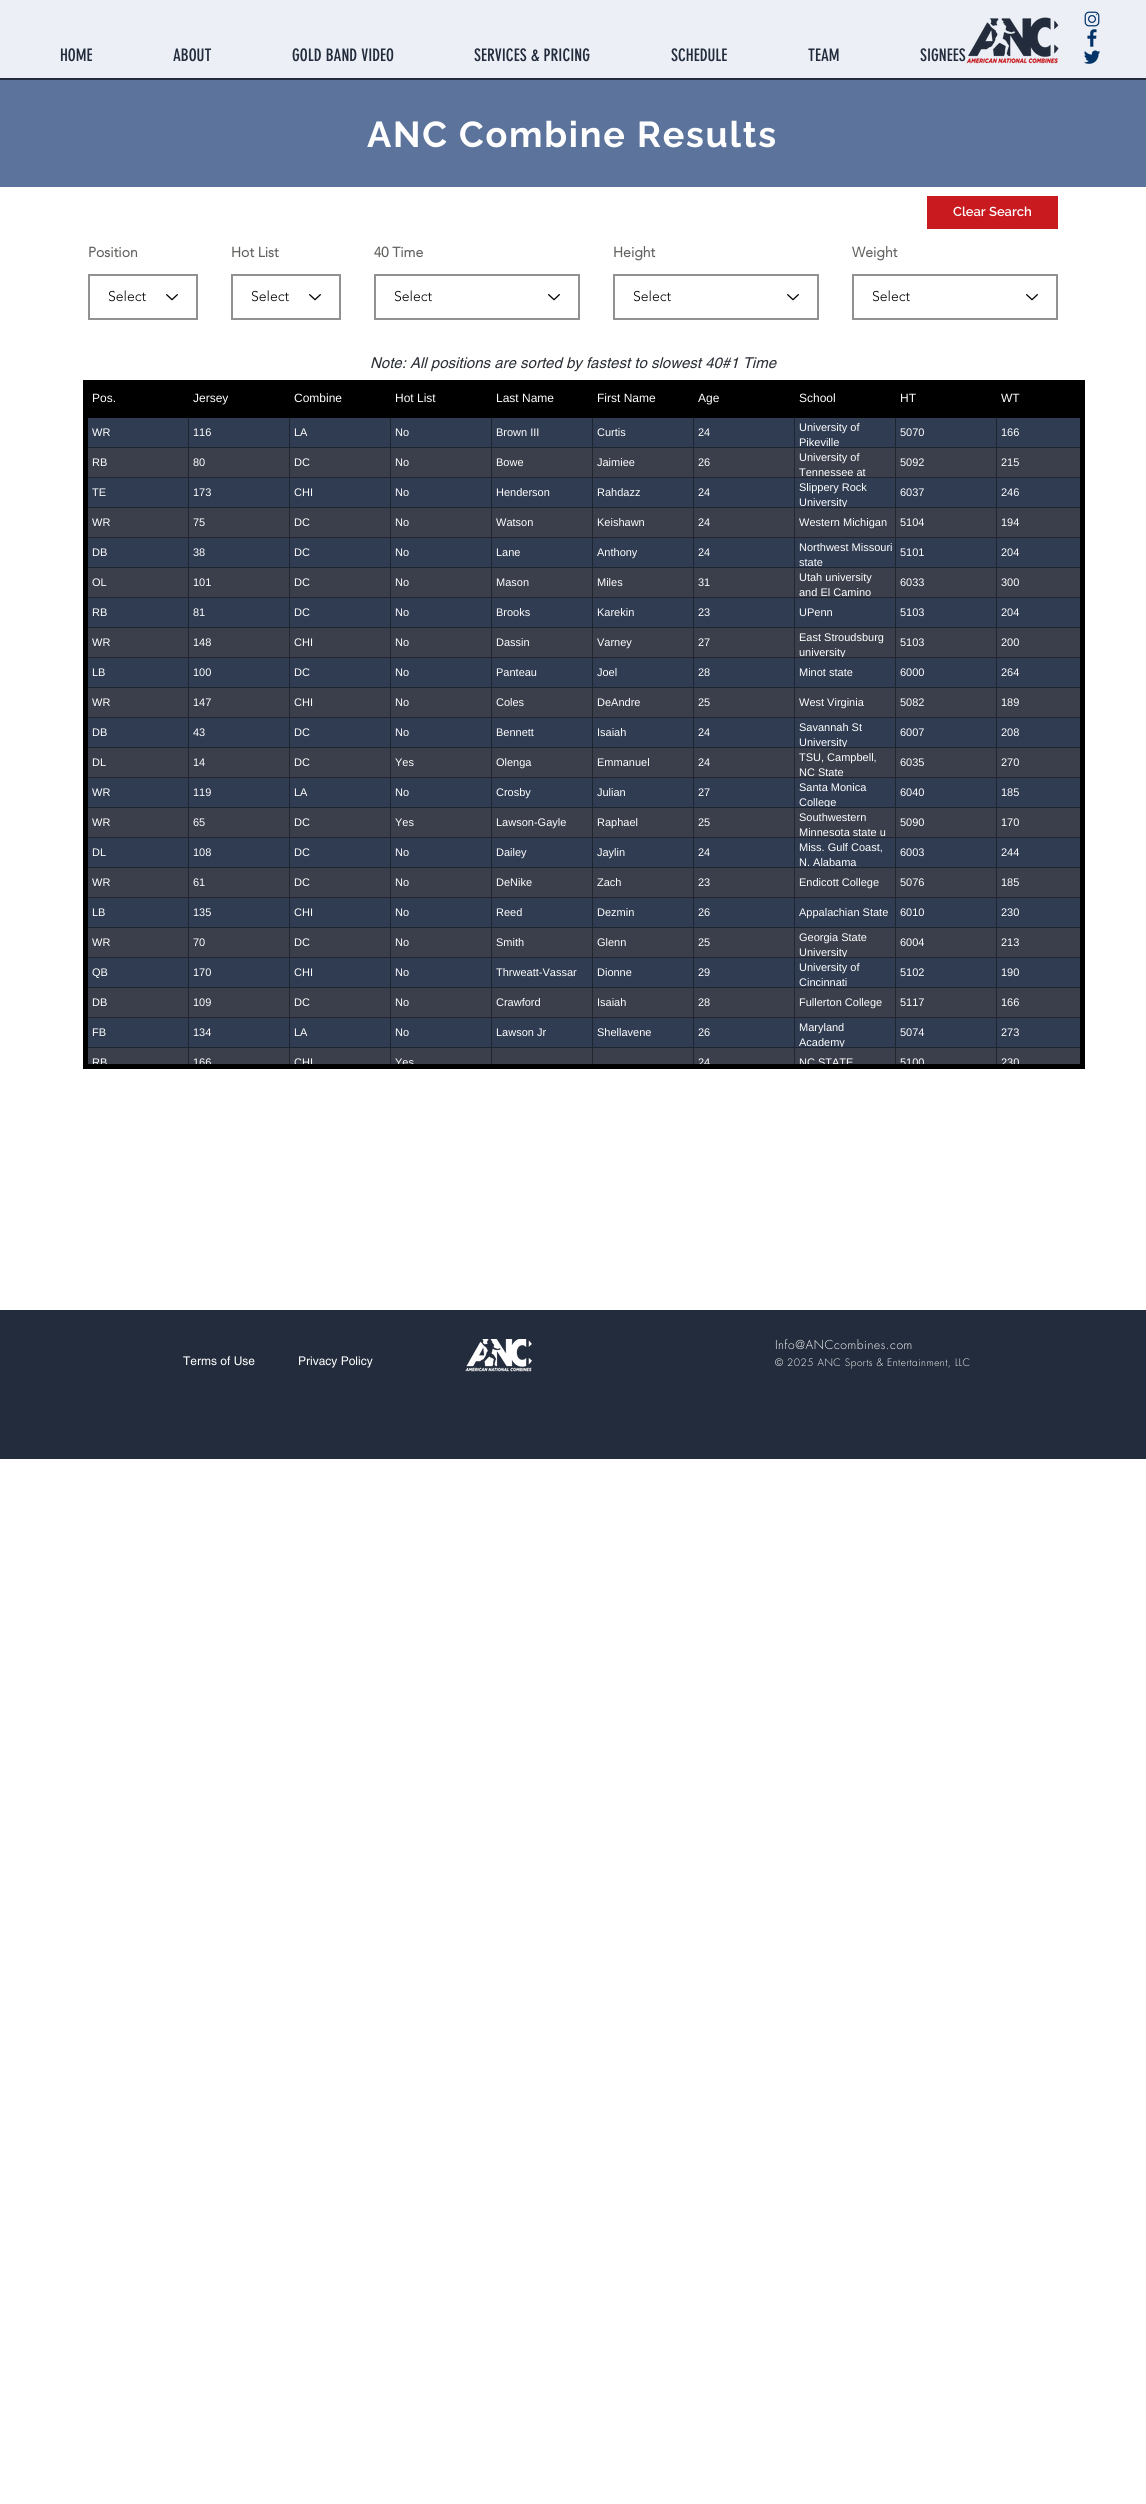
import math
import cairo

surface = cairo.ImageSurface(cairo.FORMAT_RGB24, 1146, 2504)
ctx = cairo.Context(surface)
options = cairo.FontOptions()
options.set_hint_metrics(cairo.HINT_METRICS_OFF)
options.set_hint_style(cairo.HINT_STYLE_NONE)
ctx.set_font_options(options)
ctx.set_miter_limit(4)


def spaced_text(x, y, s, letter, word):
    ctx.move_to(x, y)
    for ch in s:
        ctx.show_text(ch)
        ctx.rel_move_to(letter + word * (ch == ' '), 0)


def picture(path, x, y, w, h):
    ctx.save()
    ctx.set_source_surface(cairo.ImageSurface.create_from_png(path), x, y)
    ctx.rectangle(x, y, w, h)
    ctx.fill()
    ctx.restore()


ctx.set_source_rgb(1, 1, 1)
ctx.paint()
ctx.set_source_rgb(0.922, 0.941, 0.961)
ctx.rectangle(0, 0, 1146, 78)
ctx.fill()
ctx.set_source_rgb(0.137, 0.173, 0.235)
ctx.rectangle(0, 78, 1146, 2)
ctx.fill()
ctx.select_font_face("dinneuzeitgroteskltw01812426")
ctx.set_font_size(17)
ctx.move_to(60, 61)
ctx.show_text("HOME")
ctx.move_to(173, 61)
ctx.show_text("ABOUT")
ctx.move_to(292, 61)
ctx.show_text("GOLD BAND VIDEO")
ctx.move_to(474, 61)
ctx.show_text("SERVICES & PRICING")
ctx.move_to(671, 61)
ctx.show_text("SCHEDULE")
ctx.move_to(808, 61)
ctx.show_text("TEAM")
ctx.move_to(920, 61)
ctx.show_text("SIGNEES")
picture("img1.png", 966, 17, 93, 47)
picture("img2.png", 1084, 11, 16, 16)
picture("img3.png", 1087, 29, 10, 18)
picture("img4.png", 1084, 50, 16, 14)
ctx.set_source_rgb(0.361, 0.451, 0.608)
ctx.rectangle(0, 80, 1146, 107)
ctx.fill()
ctx.select_font_face("Raleway", cairo.FONT_SLANT_NORMAL, cairo.FONT_WEIGHT_BOLD)
ctx.set_font_size(36)
ctx.set_source_rgb(1, 1, 1)
spaced_text(367, 147, "ANC Combine Results", 1.75, 0)
ctx.set_source_rgb(0.788, 0.102, 0.122)
ctx.rectangle(927, 196, 131, 33)
ctx.fill()
ctx.select_font_face("Raleway SemiBold")
ctx.set_font_size(13)
ctx.set_source_rgb(1, 1, 1)
ctx.move_to(953, 216)
ctx.show_text("Clear Search")
ctx.select_font_face("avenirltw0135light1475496", cairo.FONT_SLANT_NORMAL, cairo.FONT_WEIGHT_BOLD)
ctx.set_font_size(14)
ctx.set_source_rgb(0.38, 0.38, 0.373)
ctx.move_to(88, 257)
ctx.show_text("Position")
ctx.rectangle(89, 275, 108, 44)
ctx.set_source_rgb(0.569, 0.569, 0.569)
ctx.stroke()
ctx.select_font_face("avenirltw0135light1475496 Light")
ctx.set_source_rgb(0, 0, 0)
ctx.move_to(108, 301)
ctx.show_text("Select")
picture("img5.png", 166, 294, 12, 7)
ctx.select_font_face("avenirltw0135light1475496", cairo.FONT_SLANT_NORMAL, cairo.FONT_WEIGHT_BOLD)
ctx.set_source_rgb(0.38, 0.38, 0.373)
ctx.move_to(231, 257)
ctx.show_text("Hot List")
ctx.rectangle(232, 275, 108, 44)
ctx.set_source_rgb(0.569, 0.569, 0.569)
ctx.stroke()
ctx.select_font_face("avenirltw0135light1475496 Light")
ctx.set_source_rgb(0, 0, 0)
ctx.move_to(251, 301)
ctx.show_text("Select")
picture("img5.png", 309, 294, 12, 7)
ctx.select_font_face("avenirltw0135light1475496", cairo.FONT_SLANT_NORMAL, cairo.FONT_WEIGHT_BOLD)
ctx.set_source_rgb(0.38, 0.38, 0.373)
ctx.move_to(374, 257)
ctx.show_text("40 Time")
ctx.rectangle(375, 275, 204, 44)
ctx.set_source_rgb(0.569, 0.569, 0.569)
ctx.stroke()
ctx.select_font_face("avenirltw0135light1475496 Light")
ctx.set_source_rgb(0, 0, 0)
ctx.move_to(394, 301)
ctx.show_text("Select")
picture("img5.png", 548, 294, 12, 7)
ctx.select_font_face("avenirltw0135light1475496", cairo.FONT_SLANT_NORMAL, cairo.FONT_WEIGHT_BOLD)
ctx.set_source_rgb(0.38, 0.38, 0.373)
ctx.move_to(613, 257)
ctx.show_text("Height")
ctx.rectangle(614, 275, 204, 44)
ctx.set_source_rgb(0.569, 0.569, 0.569)
ctx.stroke()
ctx.select_font_face("avenirltw0135light1475496 Light")
ctx.set_source_rgb(0, 0, 0)
ctx.move_to(633, 301)
ctx.show_text("Select")
picture("img5.png", 787, 294, 12, 7)
ctx.select_font_face("avenirltw0135light1475496", cairo.FONT_SLANT_NORMAL, cairo.FONT_WEIGHT_BOLD)
ctx.set_source_rgb(0.38, 0.38, 0.373)
ctx.move_to(852, 257)
ctx.show_text("Weight")
ctx.rectangle(853, 275, 204, 44)
ctx.set_source_rgb(0.569, 0.569, 0.569)
ctx.stroke()
ctx.select_font_face("avenirltw0135light1475496 Light")
ctx.set_source_rgb(0, 0, 0)
ctx.move_to(872, 301)
ctx.show_text("Select")
picture("img5.png", 1026, 294, 12, 7)
ctx.select_font_face("helvetica", cairo.FONT_SLANT_ITALIC)
ctx.set_font_size(15)
ctx.set_source_rgb(0.165, 0.184, 0.212)
ctx.move_to(370, 368)
ctx.show_text("Note: All positions are sorted by fastest to slowest 40#1 Time")
ctx.set_source_rgb(0, 0, 0)
ctx.rectangle(83, 380, 1002, 689)
ctx.fill()
ctx.select_font_face("Liberation Sans")
ctx.set_font_size(12)
ctx.set_source_rgb(1, 1, 1)
ctx.move_to(92, 402)
ctx.show_text("Pos.")
ctx.move_to(193, 402)
ctx.show_text("Jersey")
ctx.move_to(294, 402)
ctx.show_text("Combine")
ctx.move_to(395, 402)
ctx.show_text("Hot List")
ctx.move_to(496, 402)
ctx.show_text("Last Name")
ctx.move_to(597, 402)
ctx.show_text("First Name")
ctx.move_to(698, 402)
ctx.show_text("Age")
ctx.move_to(799, 402)
ctx.show_text("School")
ctx.move_to(900, 402)
ctx.show_text("HT")
ctx.move_to(1001, 402)
ctx.show_text("WT")
ctx.set_source_rgb(0.188, 0.235, 0.322)
ctx.rectangle(88, 418, 992, 29)
ctx.fill()
ctx.set_source_rgb(0.114, 0.145, 0.196)
ctx.rectangle(88, 447, 992, 1)
ctx.fill()
ctx.rectangle(188, 418, 1, 29)
ctx.fill()
ctx.set_font_size(11)
ctx.set_source_rgb(1, 1, 1)
ctx.move_to(92, 436)
ctx.show_text("WR")
ctx.set_source_rgb(0.114, 0.145, 0.196)
ctx.rectangle(289, 418, 1, 29)
ctx.fill()
ctx.set_source_rgb(1, 1, 1)
ctx.move_to(193, 436)
ctx.show_text("116")
ctx.set_source_rgb(0.114, 0.145, 0.196)
ctx.rectangle(390, 418, 1, 29)
ctx.fill()
ctx.set_source_rgb(1, 1, 1)
ctx.move_to(294, 436)
ctx.show_text("LA")
ctx.set_source_rgb(0.114, 0.145, 0.196)
ctx.rectangle(491, 418, 1, 29)
ctx.fill()
ctx.set_source_rgb(1, 1, 1)
ctx.move_to(395, 436)
ctx.show_text("No")
ctx.set_source_rgb(0.114, 0.145, 0.196)
ctx.rectangle(592, 418, 1, 29)
ctx.fill()
ctx.set_source_rgb(1, 1, 1)
ctx.move_to(496, 436)
ctx.show_text("Brown III")
ctx.set_source_rgb(0.114, 0.145, 0.196)
ctx.rectangle(693, 418, 1, 29)
ctx.fill()
ctx.set_source_rgb(1, 1, 1)
ctx.move_to(597, 436)
ctx.show_text("Curtis")
ctx.set_source_rgb(0.114, 0.145, 0.196)
ctx.rectangle(794, 418, 1, 29)
ctx.fill()
ctx.set_source_rgb(1, 1, 1)
ctx.move_to(698, 436)
ctx.show_text("24")
ctx.set_source_rgb(0.114, 0.145, 0.196)
ctx.rectangle(895, 418, 1, 29)
ctx.fill()
ctx.set_source_rgb(1, 1, 1)
ctx.move_to(799, 431)
ctx.show_text("University of")
ctx.move_to(799, 446)
ctx.show_text("Pikeville")
ctx.set_source_rgb(0.114, 0.145, 0.196)
ctx.rectangle(996, 418, 1, 29)
ctx.fill()
ctx.set_source_rgb(1, 1, 1)
ctx.move_to(900, 436)
ctx.show_text("5070")
ctx.move_to(1001, 436)
ctx.show_text("166")
ctx.set_source_rgb(0.231, 0.247, 0.294)
ctx.rectangle(88, 448, 992, 29)
ctx.fill()
ctx.set_source_rgb(0.141, 0.149, 0.18)
ctx.rectangle(88, 477, 992, 1)
ctx.fill()
ctx.rectangle(188, 448, 1, 29)
ctx.fill()
ctx.set_source_rgb(1, 1, 1)
ctx.move_to(92, 466)
ctx.show_text("RB")
ctx.set_source_rgb(0.141, 0.149, 0.18)
ctx.rectangle(289, 448, 1, 29)
ctx.fill()
ctx.set_source_rgb(1, 1, 1)
ctx.move_to(193, 466)
ctx.show_text("80")
ctx.set_source_rgb(0.141, 0.149, 0.18)
ctx.rectangle(390, 448, 1, 29)
ctx.fill()
ctx.set_source_rgb(1, 1, 1)
ctx.move_to(294, 466)
ctx.show_text("DC")
ctx.set_source_rgb(0.141, 0.149, 0.18)
ctx.rectangle(491, 448, 1, 29)
ctx.fill()
ctx.set_source_rgb(1, 1, 1)
ctx.move_to(395, 466)
ctx.show_text("No")
ctx.set_source_rgb(0.141, 0.149, 0.18)
ctx.rectangle(592, 448, 1, 29)
ctx.fill()
ctx.set_source_rgb(1, 1, 1)
ctx.move_to(496, 466)
ctx.show_text("Bowe")
ctx.set_source_rgb(0.141, 0.149, 0.18)
ctx.rectangle(693, 448, 1, 29)
ctx.fill()
ctx.set_source_rgb(1, 1, 1)
ctx.move_to(597, 466)
ctx.show_text("Jaimiee")
ctx.set_source_rgb(0.141, 0.149, 0.18)
ctx.rectangle(794, 448, 1, 29)
ctx.fill()
ctx.set_source_rgb(1, 1, 1)
ctx.move_to(698, 466)
ctx.show_text("26")
ctx.set_source_rgb(0.141, 0.149, 0.18)
ctx.rectangle(895, 448, 1, 29)
ctx.fill()
ctx.set_source_rgb(1, 1, 1)
ctx.move_to(799, 461)
ctx.show_text("University of")
ctx.move_to(799, 476)
ctx.show_text("Tennessee at")
ctx.set_source_rgb(0.141, 0.149, 0.18)
ctx.rectangle(996, 448, 1, 29)
ctx.fill()
ctx.set_source_rgb(1, 1, 1)
ctx.move_to(900, 466)
ctx.show_text("5092")
ctx.move_to(1001, 466)
ctx.show_text("215")
ctx.set_source_rgb(0.188, 0.235, 0.322)
ctx.rectangle(88, 478, 992, 29)
ctx.fill()
ctx.set_source_rgb(0.114, 0.145, 0.196)
ctx.rectangle(88, 507, 992, 1)
ctx.fill()
ctx.rectangle(188, 478, 1, 29)
ctx.fill()
ctx.set_source_rgb(1, 1, 1)
ctx.move_to(92, 496)
ctx.show_text("TE")
ctx.set_source_rgb(0.114, 0.145, 0.196)
ctx.rectangle(289, 478, 1, 29)
ctx.fill()
ctx.set_source_rgb(1, 1, 1)
ctx.move_to(193, 496)
ctx.show_text("173")
ctx.set_source_rgb(0.114, 0.145, 0.196)
ctx.rectangle(390, 478, 1, 29)
ctx.fill()
ctx.set_source_rgb(1, 1, 1)
ctx.move_to(294, 496)
ctx.show_text("CHI")
ctx.set_source_rgb(0.114, 0.145, 0.196)
ctx.rectangle(491, 478, 1, 29)
ctx.fill()
ctx.set_source_rgb(1, 1, 1)
ctx.move_to(395, 496)
ctx.show_text("No")
ctx.set_source_rgb(0.114, 0.145, 0.196)
ctx.rectangle(592, 478, 1, 29)
ctx.fill()
ctx.set_source_rgb(1, 1, 1)
ctx.move_to(496, 496)
ctx.show_text("Henderson")
ctx.set_source_rgb(0.114, 0.145, 0.196)
ctx.rectangle(693, 478, 1, 29)
ctx.fill()
ctx.set_source_rgb(1, 1, 1)
ctx.move_to(597, 496)
ctx.show_text("Rahdazz")
ctx.set_source_rgb(0.114, 0.145, 0.196)
ctx.rectangle(794, 478, 1, 29)
ctx.fill()
ctx.set_source_rgb(1, 1, 1)
ctx.move_to(698, 496)
ctx.show_text("24")
ctx.set_source_rgb(0.114, 0.145, 0.196)
ctx.rectangle(895, 478, 1, 29)
ctx.fill()
ctx.set_source_rgb(1, 1, 1)
ctx.move_to(799, 491)
ctx.show_text("Slippery Rock")
ctx.save()
ctx.rectangle(795, 478, 100, 29)
ctx.clip()
ctx.move_to(799, 506)
ctx.show_text("University")
ctx.restore()
ctx.set_source_rgb(0.114, 0.145, 0.196)
ctx.rectangle(996, 478, 1, 29)
ctx.fill()
ctx.set_source_rgb(1, 1, 1)
ctx.move_to(900, 496)
ctx.show_text("6037")
ctx.move_to(1001, 496)
ctx.show_text("246")
ctx.set_source_rgb(0.231, 0.247, 0.294)
ctx.rectangle(88, 508, 992, 29)
ctx.fill()
ctx.set_source_rgb(0.141, 0.149, 0.18)
ctx.rectangle(88, 537, 992, 1)
ctx.fill()
ctx.rectangle(188, 508, 1, 29)
ctx.fill()
ctx.set_source_rgb(1, 1, 1)
ctx.move_to(92, 526)
ctx.show_text("WR")
ctx.set_source_rgb(0.141, 0.149, 0.18)
ctx.rectangle(289, 508, 1, 29)
ctx.fill()
ctx.set_source_rgb(1, 1, 1)
ctx.move_to(193, 526)
ctx.show_text("75")
ctx.set_source_rgb(0.141, 0.149, 0.18)
ctx.rectangle(390, 508, 1, 29)
ctx.fill()
ctx.set_source_rgb(1, 1, 1)
ctx.move_to(294, 526)
ctx.show_text("DC")
ctx.set_source_rgb(0.141, 0.149, 0.18)
ctx.rectangle(491, 508, 1, 29)
ctx.fill()
ctx.set_source_rgb(1, 1, 1)
ctx.move_to(395, 526)
ctx.show_text("No")
ctx.set_source_rgb(0.141, 0.149, 0.18)
ctx.rectangle(592, 508, 1, 29)
ctx.fill()
ctx.set_source_rgb(1, 1, 1)
ctx.move_to(496, 526)
ctx.show_text("Watson")
ctx.set_source_rgb(0.141, 0.149, 0.18)
ctx.rectangle(693, 508, 1, 29)
ctx.fill()
ctx.set_source_rgb(1, 1, 1)
ctx.move_to(597, 526)
ctx.show_text("Keishawn")
ctx.set_source_rgb(0.141, 0.149, 0.18)
ctx.rectangle(794, 508, 1, 29)
ctx.fill()
ctx.set_source_rgb(1, 1, 1)
ctx.move_to(698, 526)
ctx.show_text("24")
ctx.set_source_rgb(0.141, 0.149, 0.18)
ctx.rectangle(895, 508, 1, 29)
ctx.fill()
ctx.set_source_rgb(1, 1, 1)
ctx.move_to(799, 526)
ctx.show_text("Western Michigan")
ctx.set_source_rgb(0.141, 0.149, 0.18)
ctx.rectangle(996, 508, 1, 29)
ctx.fill()
ctx.set_source_rgb(1, 1, 1)
ctx.move_to(900, 526)
ctx.show_text("5104")
ctx.move_to(1001, 526)
ctx.show_text("194")
ctx.set_source_rgb(0.188, 0.235, 0.322)
ctx.rectangle(88, 538, 992, 29)
ctx.fill()
ctx.set_source_rgb(0.114, 0.145, 0.196)
ctx.rectangle(88, 567, 992, 1)
ctx.fill()
ctx.rectangle(188, 538, 1, 29)
ctx.fill()
ctx.set_source_rgb(1, 1, 1)
ctx.move_to(92, 556)
ctx.show_text("DB")
ctx.set_source_rgb(0.114, 0.145, 0.196)
ctx.rectangle(289, 538, 1, 29)
ctx.fill()
ctx.set_source_rgb(1, 1, 1)
ctx.move_to(193, 556)
ctx.show_text("38")
ctx.set_source_rgb(0.114, 0.145, 0.196)
ctx.rectangle(390, 538, 1, 29)
ctx.fill()
ctx.set_source_rgb(1, 1, 1)
ctx.move_to(294, 556)
ctx.show_text("DC")
ctx.set_source_rgb(0.114, 0.145, 0.196)
ctx.rectangle(491, 538, 1, 29)
ctx.fill()
ctx.set_source_rgb(1, 1, 1)
ctx.move_to(395, 556)
ctx.show_text("No")
ctx.set_source_rgb(0.114, 0.145, 0.196)
ctx.rectangle(592, 538, 1, 29)
ctx.fill()
ctx.set_source_rgb(1, 1, 1)
ctx.move_to(496, 556)
ctx.show_text("Lane")
ctx.set_source_rgb(0.114, 0.145, 0.196)
ctx.rectangle(693, 538, 1, 29)
ctx.fill()
ctx.set_source_rgb(1, 1, 1)
ctx.move_to(597, 556)
ctx.show_text("Anthony")
ctx.set_source_rgb(0.114, 0.145, 0.196)
ctx.rectangle(794, 538, 1, 29)
ctx.fill()
ctx.set_source_rgb(1, 1, 1)
ctx.move_to(698, 556)
ctx.show_text("24")
ctx.set_source_rgb(0.114, 0.145, 0.196)
ctx.rectangle(895, 538, 1, 29)
ctx.fill()
ctx.set_source_rgb(1, 1, 1)
ctx.move_to(799, 551)
ctx.show_text("Northwest Missouri")
ctx.move_to(799, 566)
ctx.show_text("state")
ctx.set_source_rgb(0.114, 0.145, 0.196)
ctx.rectangle(996, 538, 1, 29)
ctx.fill()
ctx.set_source_rgb(1, 1, 1)
ctx.move_to(900, 556)
ctx.show_text("5101")
ctx.move_to(1001, 556)
ctx.show_text("204")
ctx.set_source_rgb(0.231, 0.247, 0.294)
ctx.rectangle(88, 568, 992, 29)
ctx.fill()
ctx.set_source_rgb(0.141, 0.149, 0.18)
ctx.rectangle(88, 597, 992, 1)
ctx.fill()
ctx.rectangle(188, 568, 1, 29)
ctx.fill()
ctx.set_source_rgb(1, 1, 1)
ctx.move_to(92, 586)
ctx.show_text("OL")
ctx.set_source_rgb(0.141, 0.149, 0.18)
ctx.rectangle(289, 568, 1, 29)
ctx.fill()
ctx.set_source_rgb(1, 1, 1)
ctx.move_to(193, 586)
ctx.show_text("101")
ctx.set_source_rgb(0.141, 0.149, 0.18)
ctx.rectangle(390, 568, 1, 29)
ctx.fill()
ctx.set_source_rgb(1, 1, 1)
ctx.move_to(294, 586)
ctx.show_text("DC")
ctx.set_source_rgb(0.141, 0.149, 0.18)
ctx.rectangle(491, 568, 1, 29)
ctx.fill()
ctx.set_source_rgb(1, 1, 1)
ctx.move_to(395, 586)
ctx.show_text("No")
ctx.set_source_rgb(0.141, 0.149, 0.18)
ctx.rectangle(592, 568, 1, 29)
ctx.fill()
ctx.set_source_rgb(1, 1, 1)
ctx.move_to(496, 586)
ctx.show_text("Mason")
ctx.set_source_rgb(0.141, 0.149, 0.18)
ctx.rectangle(693, 568, 1, 29)
ctx.fill()
ctx.set_source_rgb(1, 1, 1)
ctx.move_to(597, 586)
ctx.show_text("Miles")
ctx.set_source_rgb(0.141, 0.149, 0.18)
ctx.rectangle(794, 568, 1, 29)
ctx.fill()
ctx.set_source_rgb(1, 1, 1)
ctx.move_to(698, 586)
ctx.show_text("31")
ctx.set_source_rgb(0.141, 0.149, 0.18)
ctx.rectangle(895, 568, 1, 29)
ctx.fill()
ctx.set_source_rgb(1, 1, 1)
ctx.move_to(799, 581)
ctx.show_text("Utah university")
ctx.move_to(799, 596)
ctx.show_text("and El Camino")
ctx.set_source_rgb(0.141, 0.149, 0.18)
ctx.rectangle(996, 568, 1, 29)
ctx.fill()
ctx.set_source_rgb(1, 1, 1)
ctx.move_to(900, 586)
ctx.show_text("6033")
ctx.move_to(1001, 586)
ctx.show_text("300")
ctx.set_source_rgb(0.188, 0.235, 0.322)
ctx.rectangle(88, 598, 992, 29)
ctx.fill()
ctx.set_source_rgb(0.114, 0.145, 0.196)
ctx.rectangle(88, 627, 992, 1)
ctx.fill()
ctx.rectangle(188, 598, 1, 29)
ctx.fill()
ctx.set_source_rgb(1, 1, 1)
ctx.move_to(92, 616)
ctx.show_text("RB")
ctx.set_source_rgb(0.114, 0.145, 0.196)
ctx.rectangle(289, 598, 1, 29)
ctx.fill()
ctx.set_source_rgb(1, 1, 1)
ctx.move_to(193, 616)
ctx.show_text("81")
ctx.set_source_rgb(0.114, 0.145, 0.196)
ctx.rectangle(390, 598, 1, 29)
ctx.fill()
ctx.set_source_rgb(1, 1, 1)
ctx.move_to(294, 616)
ctx.show_text("DC")
ctx.set_source_rgb(0.114, 0.145, 0.196)
ctx.rectangle(491, 598, 1, 29)
ctx.fill()
ctx.set_source_rgb(1, 1, 1)
ctx.move_to(395, 616)
ctx.show_text("No")
ctx.set_source_rgb(0.114, 0.145, 0.196)
ctx.rectangle(592, 598, 1, 29)
ctx.fill()
ctx.set_source_rgb(1, 1, 1)
ctx.move_to(496, 616)
ctx.show_text("Brooks")
ctx.set_source_rgb(0.114, 0.145, 0.196)
ctx.rectangle(693, 598, 1, 29)
ctx.fill()
ctx.set_source_rgb(1, 1, 1)
ctx.move_to(597, 616)
ctx.show_text("Karekin")
ctx.set_source_rgb(0.114, 0.145, 0.196)
ctx.rectangle(794, 598, 1, 29)
ctx.fill()
ctx.set_source_rgb(1, 1, 1)
ctx.move_to(698, 616)
ctx.show_text("23")
ctx.set_source_rgb(0.114, 0.145, 0.196)
ctx.rectangle(895, 598, 1, 29)
ctx.fill()
ctx.set_source_rgb(1, 1, 1)
ctx.move_to(799, 616)
ctx.show_text("UPenn")
ctx.set_source_rgb(0.114, 0.145, 0.196)
ctx.rectangle(996, 598, 1, 29)
ctx.fill()
ctx.set_source_rgb(1, 1, 1)
ctx.move_to(900, 616)
ctx.show_text("5103")
ctx.move_to(1001, 616)
ctx.show_text("204")
ctx.set_source_rgb(0.231, 0.247, 0.294)
ctx.rectangle(88, 628, 992, 29)
ctx.fill()
ctx.set_source_rgb(0.141, 0.149, 0.18)
ctx.rectangle(88, 657, 992, 1)
ctx.fill()
ctx.rectangle(188, 628, 1, 29)
ctx.fill()
ctx.set_source_rgb(1, 1, 1)
ctx.move_to(92, 646)
ctx.show_text("WR")
ctx.set_source_rgb(0.141, 0.149, 0.18)
ctx.rectangle(289, 628, 1, 29)
ctx.fill()
ctx.set_source_rgb(1, 1, 1)
ctx.move_to(193, 646)
ctx.show_text("148")
ctx.set_source_rgb(0.141, 0.149, 0.18)
ctx.rectangle(390, 628, 1, 29)
ctx.fill()
ctx.set_source_rgb(1, 1, 1)
ctx.move_to(294, 646)
ctx.show_text("CHI")
ctx.set_source_rgb(0.141, 0.149, 0.18)
ctx.rectangle(491, 628, 1, 29)
ctx.fill()
ctx.set_source_rgb(1, 1, 1)
ctx.move_to(395, 646)
ctx.show_text("No")
ctx.set_source_rgb(0.141, 0.149, 0.18)
ctx.rectangle(592, 628, 1, 29)
ctx.fill()
ctx.set_source_rgb(1, 1, 1)
ctx.move_to(496, 646)
ctx.show_text("Dassin")
ctx.set_source_rgb(0.141, 0.149, 0.18)
ctx.rectangle(693, 628, 1, 29)
ctx.fill()
ctx.set_source_rgb(1, 1, 1)
ctx.move_to(597, 646)
ctx.show_text("Varney")
ctx.set_source_rgb(0.141, 0.149, 0.18)
ctx.rectangle(794, 628, 1, 29)
ctx.fill()
ctx.set_source_rgb(1, 1, 1)
ctx.move_to(698, 646)
ctx.show_text("27")
ctx.set_source_rgb(0.141, 0.149, 0.18)
ctx.rectangle(895, 628, 1, 29)
ctx.fill()
ctx.set_source_rgb(1, 1, 1)
ctx.move_to(799, 641)
ctx.show_text("East Stroudsburg")
ctx.save()
ctx.rectangle(795, 628, 100, 29)
ctx.clip()
ctx.move_to(799, 656)
ctx.show_text("university")
ctx.restore()
ctx.set_source_rgb(0.141, 0.149, 0.18)
ctx.rectangle(996, 628, 1, 29)
ctx.fill()
ctx.set_source_rgb(1, 1, 1)
ctx.move_to(900, 646)
ctx.show_text("5103")
ctx.move_to(1001, 646)
ctx.show_text("200")
ctx.set_source_rgb(0.188, 0.235, 0.322)
ctx.rectangle(88, 658, 992, 29)
ctx.fill()
ctx.set_source_rgb(0.114, 0.145, 0.196)
ctx.rectangle(88, 687, 992, 1)
ctx.fill()
ctx.rectangle(188, 658, 1, 29)
ctx.fill()
ctx.set_source_rgb(1, 1, 1)
ctx.move_to(92, 676)
ctx.show_text("LB")
ctx.set_source_rgb(0.114, 0.145, 0.196)
ctx.rectangle(289, 658, 1, 29)
ctx.fill()
ctx.set_source_rgb(1, 1, 1)
ctx.move_to(193, 676)
ctx.show_text("100")
ctx.set_source_rgb(0.114, 0.145, 0.196)
ctx.rectangle(390, 658, 1, 29)
ctx.fill()
ctx.set_source_rgb(1, 1, 1)
ctx.move_to(294, 676)
ctx.show_text("DC")
ctx.set_source_rgb(0.114, 0.145, 0.196)
ctx.rectangle(491, 658, 1, 29)
ctx.fill()
ctx.set_source_rgb(1, 1, 1)
ctx.move_to(395, 676)
ctx.show_text("No")
ctx.set_source_rgb(0.114, 0.145, 0.196)
ctx.rectangle(592, 658, 1, 29)
ctx.fill()
ctx.set_source_rgb(1, 1, 1)
ctx.move_to(496, 676)
ctx.show_text("Panteau")
ctx.set_source_rgb(0.114, 0.145, 0.196)
ctx.rectangle(693, 658, 1, 29)
ctx.fill()
ctx.set_source_rgb(1, 1, 1)
ctx.move_to(597, 676)
ctx.show_text("Joel")
ctx.set_source_rgb(0.114, 0.145, 0.196)
ctx.rectangle(794, 658, 1, 29)
ctx.fill()
ctx.set_source_rgb(1, 1, 1)
ctx.move_to(698, 676)
ctx.show_text("28")
ctx.set_source_rgb(0.114, 0.145, 0.196)
ctx.rectangle(895, 658, 1, 29)
ctx.fill()
ctx.set_source_rgb(1, 1, 1)
ctx.move_to(799, 676)
ctx.show_text("Minot state")
ctx.set_source_rgb(0.114, 0.145, 0.196)
ctx.rectangle(996, 658, 1, 29)
ctx.fill()
ctx.set_source_rgb(1, 1, 1)
ctx.move_to(900, 676)
ctx.show_text("6000")
ctx.move_to(1001, 676)
ctx.show_text("264")
ctx.set_source_rgb(0.231, 0.247, 0.294)
ctx.rectangle(88, 688, 992, 29)
ctx.fill()
ctx.set_source_rgb(0.141, 0.149, 0.18)
ctx.rectangle(88, 717, 992, 1)
ctx.fill()
ctx.rectangle(188, 688, 1, 29)
ctx.fill()
ctx.set_source_rgb(1, 1, 1)
ctx.move_to(92, 706)
ctx.show_text("WR")
ctx.set_source_rgb(0.141, 0.149, 0.18)
ctx.rectangle(289, 688, 1, 29)
ctx.fill()
ctx.set_source_rgb(1, 1, 1)
ctx.move_to(193, 706)
ctx.show_text("147")
ctx.set_source_rgb(0.141, 0.149, 0.18)
ctx.rectangle(390, 688, 1, 29)
ctx.fill()
ctx.set_source_rgb(1, 1, 1)
ctx.move_to(294, 706)
ctx.show_text("CHI")
ctx.set_source_rgb(0.141, 0.149, 0.18)
ctx.rectangle(491, 688, 1, 29)
ctx.fill()
ctx.set_source_rgb(1, 1, 1)
ctx.move_to(395, 706)
ctx.show_text("No")
ctx.set_source_rgb(0.141, 0.149, 0.18)
ctx.rectangle(592, 688, 1, 29)
ctx.fill()
ctx.set_source_rgb(1, 1, 1)
ctx.move_to(496, 706)
ctx.show_text("Coles")
ctx.set_source_rgb(0.141, 0.149, 0.18)
ctx.rectangle(693, 688, 1, 29)
ctx.fill()
ctx.set_source_rgb(1, 1, 1)
ctx.move_to(597, 706)
ctx.show_text("DeAndre")
ctx.set_source_rgb(0.141, 0.149, 0.18)
ctx.rectangle(794, 688, 1, 29)
ctx.fill()
ctx.set_source_rgb(1, 1, 1)
ctx.move_to(698, 706)
ctx.show_text("25")
ctx.set_source_rgb(0.141, 0.149, 0.18)
ctx.rectangle(895, 688, 1, 29)
ctx.fill()
ctx.set_source_rgb(1, 1, 1)
ctx.move_to(799, 706)
ctx.show_text("West Virginia")
ctx.set_source_rgb(0.141, 0.149, 0.18)
ctx.rectangle(996, 688, 1, 29)
ctx.fill()
ctx.set_source_rgb(1, 1, 1)
ctx.move_to(900, 706)
ctx.show_text("5082")
ctx.move_to(1001, 706)
ctx.show_text("189")
ctx.set_source_rgb(0.188, 0.235, 0.322)
ctx.rectangle(88, 718, 992, 29)
ctx.fill()
ctx.set_source_rgb(0.114, 0.145, 0.196)
ctx.rectangle(88, 747, 992, 1)
ctx.fill()
ctx.rectangle(188, 718, 1, 29)
ctx.fill()
ctx.set_source_rgb(1, 1, 1)
ctx.move_to(92, 736)
ctx.show_text("DB")
ctx.set_source_rgb(0.114, 0.145, 0.196)
ctx.rectangle(289, 718, 1, 29)
ctx.fill()
ctx.set_source_rgb(1, 1, 1)
ctx.move_to(193, 736)
ctx.show_text("43")
ctx.set_source_rgb(0.114, 0.145, 0.196)
ctx.rectangle(390, 718, 1, 29)
ctx.fill()
ctx.set_source_rgb(1, 1, 1)
ctx.move_to(294, 736)
ctx.show_text("DC")
ctx.set_source_rgb(0.114, 0.145, 0.196)
ctx.rectangle(491, 718, 1, 29)
ctx.fill()
ctx.set_source_rgb(1, 1, 1)
ctx.move_to(395, 736)
ctx.show_text("No")
ctx.set_source_rgb(0.114, 0.145, 0.196)
ctx.rectangle(592, 718, 1, 29)
ctx.fill()
ctx.set_source_rgb(1, 1, 1)
ctx.move_to(496, 736)
ctx.show_text("Bennett")
ctx.set_source_rgb(0.114, 0.145, 0.196)
ctx.rectangle(693, 718, 1, 29)
ctx.fill()
ctx.set_source_rgb(1, 1, 1)
ctx.move_to(597, 736)
ctx.show_text("Isaiah")
ctx.set_source_rgb(0.114, 0.145, 0.196)
ctx.rectangle(794, 718, 1, 29)
ctx.fill()
ctx.set_source_rgb(1, 1, 1)
ctx.move_to(698, 736)
ctx.show_text("24")
ctx.set_source_rgb(0.114, 0.145, 0.196)
ctx.rectangle(895, 718, 1, 29)
ctx.fill()
ctx.set_source_rgb(1, 1, 1)
ctx.move_to(799, 731)
ctx.show_text("Savannah St")
ctx.save()
ctx.rectangle(795, 718, 100, 29)
ctx.clip()
ctx.move_to(799, 746)
ctx.show_text("University")
ctx.restore()
ctx.set_source_rgb(0.114, 0.145, 0.196)
ctx.rectangle(996, 718, 1, 29)
ctx.fill()
ctx.set_source_rgb(1, 1, 1)
ctx.move_to(900, 736)
ctx.show_text("6007")
ctx.move_to(1001, 736)
ctx.show_text("208")
ctx.set_source_rgb(0.231, 0.247, 0.294)
ctx.rectangle(88, 748, 992, 29)
ctx.fill()
ctx.set_source_rgb(0.141, 0.149, 0.18)
ctx.rectangle(88, 777, 992, 1)
ctx.fill()
ctx.rectangle(188, 748, 1, 29)
ctx.fill()
ctx.set_source_rgb(1, 1, 1)
ctx.move_to(92, 766)
ctx.show_text("DL")
ctx.set_source_rgb(0.141, 0.149, 0.18)
ctx.rectangle(289, 748, 1, 29)
ctx.fill()
ctx.set_source_rgb(1, 1, 1)
ctx.move_to(193, 766)
ctx.show_text("14")
ctx.set_source_rgb(0.141, 0.149, 0.18)
ctx.rectangle(390, 748, 1, 29)
ctx.fill()
ctx.set_source_rgb(1, 1, 1)
ctx.move_to(294, 766)
ctx.show_text("DC")
ctx.set_source_rgb(0.141, 0.149, 0.18)
ctx.rectangle(491, 748, 1, 29)
ctx.fill()
ctx.set_source_rgb(1, 1, 1)
ctx.move_to(395, 766)
ctx.show_text("Yes")
ctx.set_source_rgb(0.141, 0.149, 0.18)
ctx.rectangle(592, 748, 1, 29)
ctx.fill()
ctx.set_source_rgb(1, 1, 1)
ctx.move_to(496, 766)
ctx.show_text("Olenga")
ctx.set_source_rgb(0.141, 0.149, 0.18)
ctx.rectangle(693, 748, 1, 29)
ctx.fill()
ctx.set_source_rgb(1, 1, 1)
ctx.move_to(597, 766)
ctx.show_text("Emmanuel")
ctx.set_source_rgb(0.141, 0.149, 0.18)
ctx.rectangle(794, 748, 1, 29)
ctx.fill()
ctx.set_source_rgb(1, 1, 1)
ctx.move_to(698, 766)
ctx.show_text("24")
ctx.set_source_rgb(0.141, 0.149, 0.18)
ctx.rectangle(895, 748, 1, 29)
ctx.fill()
ctx.set_source_rgb(1, 1, 1)
ctx.move_to(799, 761)
ctx.show_text("TSU, Campbell,")
ctx.move_to(799, 776)
ctx.show_text("NC State")
ctx.set_source_rgb(0.141, 0.149, 0.18)
ctx.rectangle(996, 748, 1, 29)
ctx.fill()
ctx.set_source_rgb(1, 1, 1)
ctx.move_to(900, 766)
ctx.show_text("6035")
ctx.move_to(1001, 766)
ctx.show_text("270")
ctx.set_source_rgb(0.188, 0.235, 0.322)
ctx.rectangle(88, 778, 992, 29)
ctx.fill()
ctx.set_source_rgb(0.114, 0.145, 0.196)
ctx.rectangle(88, 807, 992, 1)
ctx.fill()
ctx.rectangle(188, 778, 1, 29)
ctx.fill()
ctx.set_source_rgb(1, 1, 1)
ctx.move_to(92, 796)
ctx.show_text("WR")
ctx.set_source_rgb(0.114, 0.145, 0.196)
ctx.rectangle(289, 778, 1, 29)
ctx.fill()
ctx.set_source_rgb(1, 1, 1)
ctx.move_to(193, 796)
ctx.show_text("119")
ctx.set_source_rgb(0.114, 0.145, 0.196)
ctx.rectangle(390, 778, 1, 29)
ctx.fill()
ctx.set_source_rgb(1, 1, 1)
ctx.move_to(294, 796)
ctx.show_text("LA")
ctx.set_source_rgb(0.114, 0.145, 0.196)
ctx.rectangle(491, 778, 1, 29)
ctx.fill()
ctx.set_source_rgb(1, 1, 1)
ctx.move_to(395, 796)
ctx.show_text("No")
ctx.set_source_rgb(0.114, 0.145, 0.196)
ctx.rectangle(592, 778, 1, 29)
ctx.fill()
ctx.set_source_rgb(1, 1, 1)
ctx.move_to(496, 796)
ctx.show_text("Crosby")
ctx.set_source_rgb(0.114, 0.145, 0.196)
ctx.rectangle(693, 778, 1, 29)
ctx.fill()
ctx.set_source_rgb(1, 1, 1)
ctx.move_to(597, 796)
ctx.show_text("Julian")
ctx.set_source_rgb(0.114, 0.145, 0.196)
ctx.rectangle(794, 778, 1, 29)
ctx.fill()
ctx.set_source_rgb(1, 1, 1)
ctx.move_to(698, 796)
ctx.show_text("27")
ctx.set_source_rgb(0.114, 0.145, 0.196)
ctx.rectangle(895, 778, 1, 29)
ctx.fill()
ctx.set_source_rgb(1, 1, 1)
ctx.move_to(799, 791)
ctx.show_text("Santa Monica")
ctx.save()
ctx.rectangle(795, 778, 100, 29)
ctx.clip()
ctx.move_to(799, 806)
ctx.show_text("College")
ctx.restore()
ctx.set_source_rgb(0.114, 0.145, 0.196)
ctx.rectangle(996, 778, 1, 29)
ctx.fill()
ctx.set_source_rgb(1, 1, 1)
ctx.move_to(900, 796)
ctx.show_text("6040")
ctx.move_to(1001, 796)
ctx.show_text("185")
ctx.set_source_rgb(0.231, 0.247, 0.294)
ctx.rectangle(88, 808, 992, 29)
ctx.fill()
ctx.set_source_rgb(0.141, 0.149, 0.18)
ctx.rectangle(88, 837, 992, 1)
ctx.fill()
ctx.rectangle(188, 808, 1, 29)
ctx.fill()
ctx.set_source_rgb(1, 1, 1)
ctx.move_to(92, 826)
ctx.show_text("WR")
ctx.set_source_rgb(0.141, 0.149, 0.18)
ctx.rectangle(289, 808, 1, 29)
ctx.fill()
ctx.set_source_rgb(1, 1, 1)
ctx.move_to(193, 826)
ctx.show_text("65")
ctx.set_source_rgb(0.141, 0.149, 0.18)
ctx.rectangle(390, 808, 1, 29)
ctx.fill()
ctx.set_source_rgb(1, 1, 1)
ctx.move_to(294, 826)
ctx.show_text("DC")
ctx.set_source_rgb(0.141, 0.149, 0.18)
ctx.rectangle(491, 808, 1, 29)
ctx.fill()
ctx.set_source_rgb(1, 1, 1)
ctx.move_to(395, 826)
ctx.show_text("Yes")
ctx.set_source_rgb(0.141, 0.149, 0.18)
ctx.rectangle(592, 808, 1, 29)
ctx.fill()
ctx.set_source_rgb(1, 1, 1)
ctx.move_to(496, 826)
ctx.show_text("Lawson-Gayle")
ctx.set_source_rgb(0.141, 0.149, 0.18)
ctx.rectangle(693, 808, 1, 29)
ctx.fill()
ctx.set_source_rgb(1, 1, 1)
ctx.move_to(597, 826)
ctx.show_text("Raphael")
ctx.set_source_rgb(0.141, 0.149, 0.18)
ctx.rectangle(794, 808, 1, 29)
ctx.fill()
ctx.set_source_rgb(1, 1, 1)
ctx.move_to(698, 826)
ctx.show_text("25")
ctx.set_source_rgb(0.141, 0.149, 0.18)
ctx.rectangle(895, 808, 1, 29)
ctx.fill()
ctx.set_source_rgb(1, 1, 1)
ctx.move_to(799, 821)
ctx.show_text("Southwestern")
ctx.move_to(799, 836)
ctx.show_text("Minnesota state u")
ctx.set_source_rgb(0.141, 0.149, 0.18)
ctx.rectangle(996, 808, 1, 29)
ctx.fill()
ctx.set_source_rgb(1, 1, 1)
ctx.move_to(900, 826)
ctx.show_text("5090")
ctx.move_to(1001, 826)
ctx.show_text("170")
ctx.set_source_rgb(0.188, 0.235, 0.322)
ctx.rectangle(88, 838, 992, 29)
ctx.fill()
ctx.set_source_rgb(0.114, 0.145, 0.196)
ctx.rectangle(88, 867, 992, 1)
ctx.fill()
ctx.rectangle(188, 838, 1, 29)
ctx.fill()
ctx.set_source_rgb(1, 1, 1)
ctx.move_to(92, 856)
ctx.show_text("DL")
ctx.set_source_rgb(0.114, 0.145, 0.196)
ctx.rectangle(289, 838, 1, 29)
ctx.fill()
ctx.set_source_rgb(1, 1, 1)
ctx.move_to(193, 856)
ctx.show_text("108")
ctx.set_source_rgb(0.114, 0.145, 0.196)
ctx.rectangle(390, 838, 1, 29)
ctx.fill()
ctx.set_source_rgb(1, 1, 1)
ctx.move_to(294, 856)
ctx.show_text("DC")
ctx.set_source_rgb(0.114, 0.145, 0.196)
ctx.rectangle(491, 838, 1, 29)
ctx.fill()
ctx.set_source_rgb(1, 1, 1)
ctx.move_to(395, 856)
ctx.show_text("No")
ctx.set_source_rgb(0.114, 0.145, 0.196)
ctx.rectangle(592, 838, 1, 29)
ctx.fill()
ctx.set_source_rgb(1, 1, 1)
ctx.move_to(496, 856)
ctx.show_text("Dailey")
ctx.set_source_rgb(0.114, 0.145, 0.196)
ctx.rectangle(693, 838, 1, 29)
ctx.fill()
ctx.set_source_rgb(1, 1, 1)
ctx.move_to(597, 856)
ctx.show_text("Jaylin")
ctx.set_source_rgb(0.114, 0.145, 0.196)
ctx.rectangle(794, 838, 1, 29)
ctx.fill()
ctx.set_source_rgb(1, 1, 1)
ctx.move_to(698, 856)
ctx.show_text("24")
ctx.set_source_rgb(0.114, 0.145, 0.196)
ctx.rectangle(895, 838, 1, 29)
ctx.fill()
ctx.set_source_rgb(1, 1, 1)
ctx.move_to(799, 851)
ctx.show_text("Miss. Gulf Coast,")
ctx.move_to(799, 866)
ctx.show_text("N. Alabama")
ctx.set_source_rgb(0.114, 0.145, 0.196)
ctx.rectangle(996, 838, 1, 29)
ctx.fill()
ctx.set_source_rgb(1, 1, 1)
ctx.move_to(900, 856)
ctx.show_text("6003")
ctx.move_to(1001, 856)
ctx.show_text("244")
ctx.set_source_rgb(0.231, 0.247, 0.294)
ctx.rectangle(88, 868, 992, 29)
ctx.fill()
ctx.set_source_rgb(0.141, 0.149, 0.18)
ctx.rectangle(88, 897, 992, 1)
ctx.fill()
ctx.rectangle(188, 868, 1, 29)
ctx.fill()
ctx.set_source_rgb(1, 1, 1)
ctx.move_to(92, 886)
ctx.show_text("WR")
ctx.set_source_rgb(0.141, 0.149, 0.18)
ctx.rectangle(289, 868, 1, 29)
ctx.fill()
ctx.set_source_rgb(1, 1, 1)
ctx.move_to(193, 886)
ctx.show_text("61")
ctx.set_source_rgb(0.141, 0.149, 0.18)
ctx.rectangle(390, 868, 1, 29)
ctx.fill()
ctx.set_source_rgb(1, 1, 1)
ctx.move_to(294, 886)
ctx.show_text("DC")
ctx.set_source_rgb(0.141, 0.149, 0.18)
ctx.rectangle(491, 868, 1, 29)
ctx.fill()
ctx.set_source_rgb(1, 1, 1)
ctx.move_to(395, 886)
ctx.show_text("No")
ctx.set_source_rgb(0.141, 0.149, 0.18)
ctx.rectangle(592, 868, 1, 29)
ctx.fill()
ctx.set_source_rgb(1, 1, 1)
ctx.move_to(496, 886)
ctx.show_text("DeNike")
ctx.set_source_rgb(0.141, 0.149, 0.18)
ctx.rectangle(693, 868, 1, 29)
ctx.fill()
ctx.set_source_rgb(1, 1, 1)
ctx.move_to(597, 886)
ctx.show_text("Zach")
ctx.set_source_rgb(0.141, 0.149, 0.18)
ctx.rectangle(794, 868, 1, 29)
ctx.fill()
ctx.set_source_rgb(1, 1, 1)
ctx.move_to(698, 886)
ctx.show_text("23")
ctx.set_source_rgb(0.141, 0.149, 0.18)
ctx.rectangle(895, 868, 1, 29)
ctx.fill()
ctx.set_source_rgb(1, 1, 1)
ctx.move_to(799, 886)
ctx.show_text("Endicott College")
ctx.set_source_rgb(0.141, 0.149, 0.18)
ctx.rectangle(996, 868, 1, 29)
ctx.fill()
ctx.set_source_rgb(1, 1, 1)
ctx.move_to(900, 886)
ctx.show_text("5076")
ctx.move_to(1001, 886)
ctx.show_text("185")
ctx.set_source_rgb(0.188, 0.235, 0.322)
ctx.rectangle(88, 898, 992, 29)
ctx.fill()
ctx.set_source_rgb(0.114, 0.145, 0.196)
ctx.rectangle(88, 927, 992, 1)
ctx.fill()
ctx.rectangle(188, 898, 1, 29)
ctx.fill()
ctx.set_source_rgb(1, 1, 1)
ctx.move_to(92, 916)
ctx.show_text("LB")
ctx.set_source_rgb(0.114, 0.145, 0.196)
ctx.rectangle(289, 898, 1, 29)
ctx.fill()
ctx.set_source_rgb(1, 1, 1)
ctx.move_to(193, 916)
ctx.show_text("135")
ctx.set_source_rgb(0.114, 0.145, 0.196)
ctx.rectangle(390, 898, 1, 29)
ctx.fill()
ctx.set_source_rgb(1, 1, 1)
ctx.move_to(294, 916)
ctx.show_text("CHI")
ctx.set_source_rgb(0.114, 0.145, 0.196)
ctx.rectangle(491, 898, 1, 29)
ctx.fill()
ctx.set_source_rgb(1, 1, 1)
ctx.move_to(395, 916)
ctx.show_text("No")
ctx.set_source_rgb(0.114, 0.145, 0.196)
ctx.rectangle(592, 898, 1, 29)
ctx.fill()
ctx.set_source_rgb(1, 1, 1)
ctx.move_to(496, 916)
ctx.show_text("Reed")
ctx.set_source_rgb(0.114, 0.145, 0.196)
ctx.rectangle(693, 898, 1, 29)
ctx.fill()
ctx.set_source_rgb(1, 1, 1)
ctx.move_to(597, 916)
ctx.show_text("Dezmin")
ctx.set_source_rgb(0.114, 0.145, 0.196)
ctx.rectangle(794, 898, 1, 29)
ctx.fill()
ctx.set_source_rgb(1, 1, 1)
ctx.move_to(698, 916)
ctx.show_text("26")
ctx.set_source_rgb(0.114, 0.145, 0.196)
ctx.rectangle(895, 898, 1, 29)
ctx.fill()
ctx.set_source_rgb(1, 1, 1)
ctx.move_to(799, 916)
ctx.show_text("Appalachian State")
ctx.set_source_rgb(0.114, 0.145, 0.196)
ctx.rectangle(996, 898, 1, 29)
ctx.fill()
ctx.set_source_rgb(1, 1, 1)
ctx.move_to(900, 916)
ctx.show_text("6010")
ctx.move_to(1001, 916)
ctx.show_text("230")
ctx.set_source_rgb(0.231, 0.247, 0.294)
ctx.rectangle(88, 928, 992, 29)
ctx.fill()
ctx.set_source_rgb(0.141, 0.149, 0.18)
ctx.rectangle(88, 957, 992, 1)
ctx.fill()
ctx.rectangle(188, 928, 1, 29)
ctx.fill()
ctx.set_source_rgb(1, 1, 1)
ctx.move_to(92, 946)
ctx.show_text("WR")
ctx.set_source_rgb(0.141, 0.149, 0.18)
ctx.rectangle(289, 928, 1, 29)
ctx.fill()
ctx.set_source_rgb(1, 1, 1)
ctx.move_to(193, 946)
ctx.show_text("70")
ctx.set_source_rgb(0.141, 0.149, 0.18)
ctx.rectangle(390, 928, 1, 29)
ctx.fill()
ctx.set_source_rgb(1, 1, 1)
ctx.move_to(294, 946)
ctx.show_text("DC")
ctx.set_source_rgb(0.141, 0.149, 0.18)
ctx.rectangle(491, 928, 1, 29)
ctx.fill()
ctx.set_source_rgb(1, 1, 1)
ctx.move_to(395, 946)
ctx.show_text("No")
ctx.set_source_rgb(0.141, 0.149, 0.18)
ctx.rectangle(592, 928, 1, 29)
ctx.fill()
ctx.set_source_rgb(1, 1, 1)
ctx.move_to(496, 946)
ctx.show_text("Smith")
ctx.set_source_rgb(0.141, 0.149, 0.18)
ctx.rectangle(693, 928, 1, 29)
ctx.fill()
ctx.set_source_rgb(1, 1, 1)
ctx.move_to(597, 946)
ctx.show_text("Glenn")
ctx.set_source_rgb(0.141, 0.149, 0.18)
ctx.rectangle(794, 928, 1, 29)
ctx.fill()
ctx.set_source_rgb(1, 1, 1)
ctx.move_to(698, 946)
ctx.show_text("25")
ctx.set_source_rgb(0.141, 0.149, 0.18)
ctx.rectangle(895, 928, 1, 29)
ctx.fill()
ctx.set_source_rgb(1, 1, 1)
ctx.move_to(799, 941)
ctx.show_text("Georgia State")
ctx.save()
ctx.rectangle(795, 928, 100, 29)
ctx.clip()
ctx.move_to(799, 956)
ctx.show_text("University")
ctx.restore()
ctx.set_source_rgb(0.141, 0.149, 0.18)
ctx.rectangle(996, 928, 1, 29)
ctx.fill()
ctx.set_source_rgb(1, 1, 1)
ctx.move_to(900, 946)
ctx.show_text("6004")
ctx.move_to(1001, 946)
ctx.show_text("213")
ctx.set_source_rgb(0.188, 0.235, 0.322)
ctx.rectangle(88, 958, 992, 29)
ctx.fill()
ctx.set_source_rgb(0.114, 0.145, 0.196)
ctx.rectangle(88, 987, 992, 1)
ctx.fill()
ctx.rectangle(188, 958, 1, 29)
ctx.fill()
ctx.set_source_rgb(1, 1, 1)
ctx.move_to(92, 976)
ctx.show_text("QB")
ctx.set_source_rgb(0.114, 0.145, 0.196)
ctx.rectangle(289, 958, 1, 29)
ctx.fill()
ctx.set_source_rgb(1, 1, 1)
ctx.move_to(193, 976)
ctx.show_text("170")
ctx.set_source_rgb(0.114, 0.145, 0.196)
ctx.rectangle(390, 958, 1, 29)
ctx.fill()
ctx.set_source_rgb(1, 1, 1)
ctx.move_to(294, 976)
ctx.show_text("CHI")
ctx.set_source_rgb(0.114, 0.145, 0.196)
ctx.rectangle(491, 958, 1, 29)
ctx.fill()
ctx.set_source_rgb(1, 1, 1)
ctx.move_to(395, 976)
ctx.show_text("No")
ctx.set_source_rgb(0.114, 0.145, 0.196)
ctx.rectangle(592, 958, 1, 29)
ctx.fill()
ctx.set_source_rgb(1, 1, 1)
ctx.move_to(496, 976)
ctx.show_text("Thrweatt-Vassar")
ctx.set_source_rgb(0.114, 0.145, 0.196)
ctx.rectangle(693, 958, 1, 29)
ctx.fill()
ctx.set_source_rgb(1, 1, 1)
ctx.move_to(597, 976)
ctx.show_text("Dionne")
ctx.set_source_rgb(0.114, 0.145, 0.196)
ctx.rectangle(794, 958, 1, 29)
ctx.fill()
ctx.set_source_rgb(1, 1, 1)
ctx.move_to(698, 976)
ctx.show_text("29")
ctx.set_source_rgb(0.114, 0.145, 0.196)
ctx.rectangle(895, 958, 1, 29)
ctx.fill()
ctx.set_source_rgb(1, 1, 1)
ctx.move_to(799, 971)
ctx.show_text("University of")
ctx.move_to(799, 986)
ctx.show_text("Cincinnati")
ctx.set_source_rgb(0.114, 0.145, 0.196)
ctx.rectangle(996, 958, 1, 29)
ctx.fill()
ctx.set_source_rgb(1, 1, 1)
ctx.move_to(900, 976)
ctx.show_text("5102")
ctx.move_to(1001, 976)
ctx.show_text("190")
ctx.set_source_rgb(0.231, 0.247, 0.294)
ctx.rectangle(88, 988, 992, 29)
ctx.fill()
ctx.set_source_rgb(0.141, 0.149, 0.18)
ctx.rectangle(88, 1017, 992, 1)
ctx.fill()
ctx.rectangle(188, 988, 1, 29)
ctx.fill()
ctx.set_source_rgb(1, 1, 1)
ctx.move_to(92, 1006)
ctx.show_text("DB")
ctx.set_source_rgb(0.141, 0.149, 0.18)
ctx.rectangle(289, 988, 1, 29)
ctx.fill()
ctx.set_source_rgb(1, 1, 1)
ctx.move_to(193, 1006)
ctx.show_text("109")
ctx.set_source_rgb(0.141, 0.149, 0.18)
ctx.rectangle(390, 988, 1, 29)
ctx.fill()
ctx.set_source_rgb(1, 1, 1)
ctx.move_to(294, 1006)
ctx.show_text("DC")
ctx.set_source_rgb(0.141, 0.149, 0.18)
ctx.rectangle(491, 988, 1, 29)
ctx.fill()
ctx.set_source_rgb(1, 1, 1)
ctx.move_to(395, 1006)
ctx.show_text("No")
ctx.set_source_rgb(0.141, 0.149, 0.18)
ctx.rectangle(592, 988, 1, 29)
ctx.fill()
ctx.set_source_rgb(1, 1, 1)
ctx.move_to(496, 1006)
ctx.show_text("Crawford")
ctx.set_source_rgb(0.141, 0.149, 0.18)
ctx.rectangle(693, 988, 1, 29)
ctx.fill()
ctx.set_source_rgb(1, 1, 1)
ctx.move_to(597, 1006)
ctx.show_text("Isaiah")
ctx.set_source_rgb(0.141, 0.149, 0.18)
ctx.rectangle(794, 988, 1, 29)
ctx.fill()
ctx.set_source_rgb(1, 1, 1)
ctx.move_to(698, 1006)
ctx.show_text("28")
ctx.set_source_rgb(0.141, 0.149, 0.18)
ctx.rectangle(895, 988, 1, 29)
ctx.fill()
ctx.set_source_rgb(1, 1, 1)
ctx.move_to(799, 1006)
ctx.show_text("Fullerton College")
ctx.set_source_rgb(0.141, 0.149, 0.18)
ctx.rectangle(996, 988, 1, 29)
ctx.fill()
ctx.set_source_rgb(1, 1, 1)
ctx.move_to(900, 1006)
ctx.show_text("5117")
ctx.move_to(1001, 1006)
ctx.show_text("166")
ctx.set_source_rgb(0.188, 0.235, 0.322)
ctx.rectangle(88, 1018, 992, 29)
ctx.fill()
ctx.set_source_rgb(0.114, 0.145, 0.196)
ctx.rectangle(88, 1047, 992, 1)
ctx.fill()
ctx.rectangle(188, 1018, 1, 29)
ctx.fill()
ctx.set_source_rgb(1, 1, 1)
ctx.move_to(92, 1036)
ctx.show_text("FB")
ctx.set_source_rgb(0.114, 0.145, 0.196)
ctx.rectangle(289, 1018, 1, 29)
ctx.fill()
ctx.set_source_rgb(1, 1, 1)
ctx.move_to(193, 1036)
ctx.show_text("134")
ctx.set_source_rgb(0.114, 0.145, 0.196)
ctx.rectangle(390, 1018, 1, 29)
ctx.fill()
ctx.set_source_rgb(1, 1, 1)
ctx.move_to(294, 1036)
ctx.show_text("LA")
ctx.set_source_rgb(0.114, 0.145, 0.196)
ctx.rectangle(491, 1018, 1, 29)
ctx.fill()
ctx.set_source_rgb(1, 1, 1)
ctx.move_to(395, 1036)
ctx.show_text("No")
ctx.set_source_rgb(0.114, 0.145, 0.196)
ctx.rectangle(592, 1018, 1, 29)
ctx.fill()
ctx.set_source_rgb(1, 1, 1)
ctx.move_to(496, 1036)
ctx.show_text("Lawson Jr")
ctx.set_source_rgb(0.114, 0.145, 0.196)
ctx.rectangle(693, 1018, 1, 29)
ctx.fill()
ctx.set_source_rgb(1, 1, 1)
ctx.move_to(597, 1036)
ctx.show_text("Shellavene")
ctx.set_source_rgb(0.114, 0.145, 0.196)
ctx.rectangle(794, 1018, 1, 29)
ctx.fill()
ctx.set_source_rgb(1, 1, 1)
ctx.move_to(698, 1036)
ctx.show_text("26")
ctx.set_source_rgb(0.114, 0.145, 0.196)
ctx.rectangle(895, 1018, 1, 29)
ctx.fill()
ctx.set_source_rgb(1, 1, 1)
ctx.move_to(799, 1031)
ctx.show_text("Maryland")
ctx.save()
ctx.rectangle(795, 1018, 100, 29)
ctx.clip()
ctx.move_to(799, 1046)
ctx.show_text("Academy")
ctx.restore()
ctx.set_source_rgb(0.114, 0.145, 0.196)
ctx.rectangle(996, 1018, 1, 29)
ctx.fill()
ctx.set_source_rgb(1, 1, 1)
ctx.move_to(900, 1036)
ctx.show_text("5074")
ctx.move_to(1001, 1036)
ctx.show_text("273")
ctx.set_source_rgb(0.231, 0.247, 0.294)
ctx.rectangle(88, 1048, 992, 16)
ctx.fill()
ctx.set_source_rgb(0.141, 0.149, 0.18)
ctx.rectangle(188, 1048, 1, 16)
ctx.fill()
ctx.save()
ctx.rectangle(88, 1048, 100, 16)
ctx.clip()
ctx.set_source_rgb(1, 1, 1)
ctx.move_to(92, 1066)
ctx.show_text("RB")
ctx.restore()
ctx.rectangle(289, 1048, 1, 16)
ctx.fill()
ctx.save()
ctx.rectangle(189, 1048, 100, 16)
ctx.clip()
ctx.set_source_rgb(1, 1, 1)
ctx.move_to(193, 1066)
ctx.show_text("166")
ctx.restore()
ctx.rectangle(390, 1048, 1, 16)
ctx.fill()
ctx.save()
ctx.rectangle(290, 1048, 100, 16)
ctx.clip()
ctx.set_source_rgb(1, 1, 1)
ctx.move_to(294, 1066)
ctx.show_text("CHI")
ctx.restore()
ctx.rectangle(491, 1048, 1, 16)
ctx.fill()
ctx.save()
ctx.rectangle(391, 1048, 100, 16)
ctx.clip()
ctx.set_source_rgb(1, 1, 1)
ctx.move_to(395, 1066)
ctx.show_text("Yes")
ctx.restore()
ctx.rectangle(592, 1048, 1, 16)
ctx.fill()
ctx.rectangle(693, 1048, 1, 16)
ctx.fill()
ctx.rectangle(794, 1048, 1, 16)
ctx.fill()
ctx.save()
ctx.rectangle(694, 1048, 100, 16)
ctx.clip()
ctx.set_source_rgb(1, 1, 1)
ctx.move_to(698, 1066)
ctx.show_text("24")
ctx.restore()
ctx.rectangle(895, 1048, 1, 16)
ctx.fill()
ctx.save()
ctx.rectangle(795, 1048, 100, 16)
ctx.clip()
ctx.set_source_rgb(1, 1, 1)
ctx.move_to(799, 1066)
ctx.show_text("NC STATE")
ctx.restore()
ctx.rectangle(996, 1048, 1, 16)
ctx.fill()
ctx.save()
ctx.rectangle(896, 1048, 100, 16)
ctx.clip()
ctx.set_source_rgb(1, 1, 1)
ctx.move_to(900, 1066)
ctx.show_text("5100")
ctx.restore()
ctx.save()
ctx.rectangle(997, 1048, 83, 16)
ctx.clip()
ctx.set_source_rgb(1, 1, 1)
ctx.move_to(1001, 1066)
ctx.show_text("230")
ctx.restore()
ctx.set_source_rgb(0.137, 0.173, 0.235)
ctx.rectangle(0, 1310, 1146, 149)
ctx.fill()
ctx.select_font_face("helvetica")
ctx.set_font_size(12)
ctx.set_source_rgb(1, 1, 1)
ctx.move_to(183, 1365)
ctx.show_text("Terms of Use")
ctx.move_to(298, 1365)
ctx.show_text("Privacy Policy")
picture("img6.png", 465, 1339, 67, 33)
ctx.select_font_face("futura Light")
spaced_text(775, 1349, "Info@ANCcombines.com", 0.6, 0)
ctx.set_font_size(10)
spaced_text(775, 1366, "© 2025 ANC Sports & Entertainment, LLC", 0.5, 0)
surface.write_to_png("page.png")
